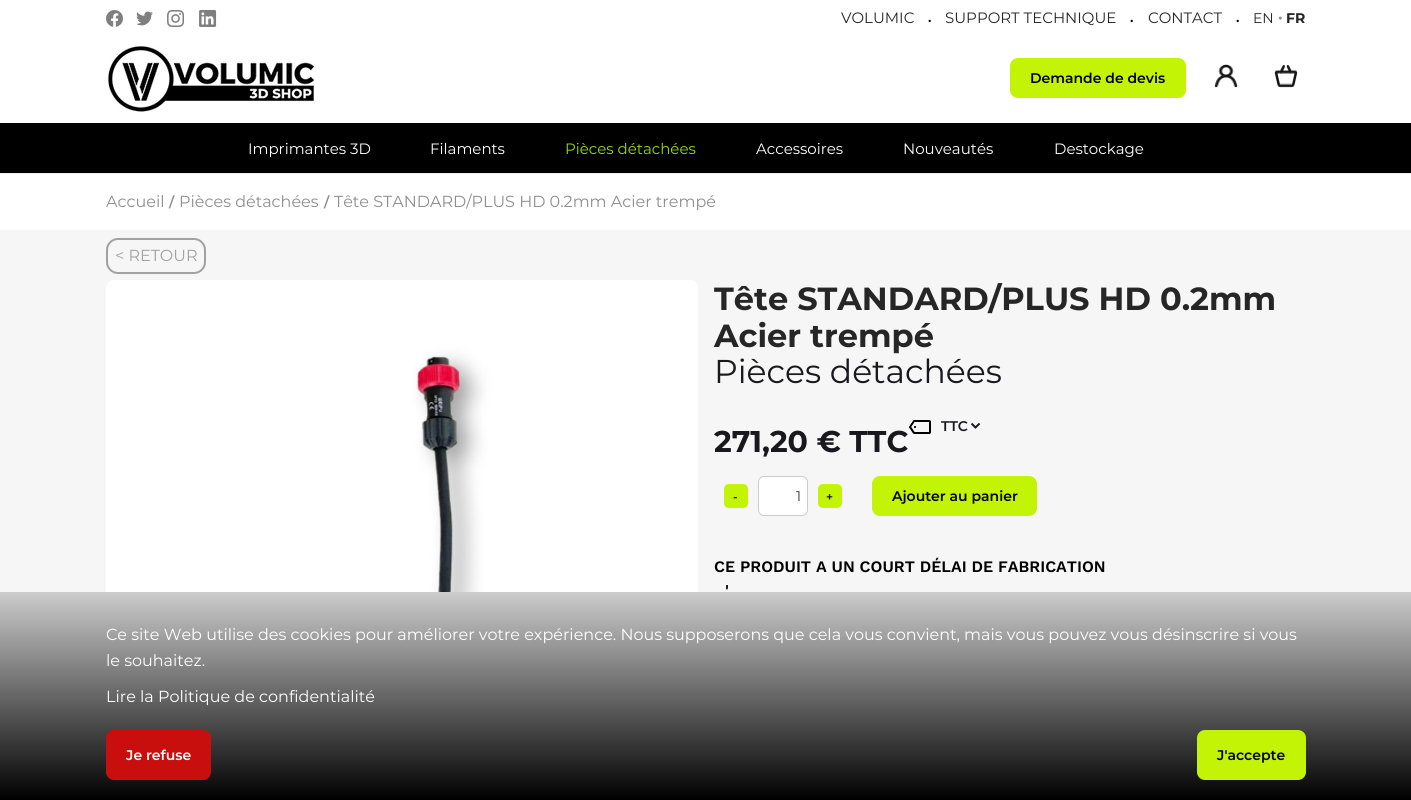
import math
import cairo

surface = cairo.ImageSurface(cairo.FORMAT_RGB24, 1411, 800)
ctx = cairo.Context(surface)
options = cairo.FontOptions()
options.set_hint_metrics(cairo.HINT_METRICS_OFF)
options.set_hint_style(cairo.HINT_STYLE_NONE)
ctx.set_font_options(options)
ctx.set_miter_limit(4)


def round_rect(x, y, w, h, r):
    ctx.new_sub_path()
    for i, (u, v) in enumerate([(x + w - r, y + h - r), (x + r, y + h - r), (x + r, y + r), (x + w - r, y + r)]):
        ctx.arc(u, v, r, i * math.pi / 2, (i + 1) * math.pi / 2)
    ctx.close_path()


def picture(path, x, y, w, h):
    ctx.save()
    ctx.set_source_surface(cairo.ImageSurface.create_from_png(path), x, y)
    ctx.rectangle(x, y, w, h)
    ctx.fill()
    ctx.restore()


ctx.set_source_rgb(0.961, 0.961, 0.961)
ctx.paint()
ctx.set_source_rgb(1, 1, 1)
ctx.rectangle(0, 0, 1411, 123)
ctx.fill()
ctx.set_source_rgb(0.922, 0.929, 0.933)
ctx.rectangle(0, 173, 1411, 1)
ctx.fill()
picture("img1.png", 106, 10, 17, 17)
picture("img2.png", 136, 11, 17, 15)
picture("img3.png", 167, 10, 17, 17)
picture("img4.png", 199, 10, 18, 17)
ctx.select_font_face("Montserrat Thin")
ctx.set_font_size(15)
ctx.set_source_rgb(0.149, 0.149, 0.149)
ctx.move_to(841, 23)
ctx.show_text("VOLUMIC")
ctx.move_to(945, 23)
ctx.show_text("SUPPORT TECHNIQUE")
ctx.move_to(1148, 23)
ctx.show_text("CONTACT")
ctx.set_font_size(14)
ctx.move_to(1253, 23)
ctx.show_text("EN")
ctx.select_font_face("Montserrat SemiBold")
ctx.set_source_rgb(0.557, 0.557, 0.557)
ctx.move_to(1278, 22)
ctx.show_text("•")
ctx.select_font_face("Montserrat", cairo.FONT_SLANT_NORMAL, cairo.FONT_WEIGHT_BOLD)
ctx.set_source_rgb(0.149, 0.149, 0.149)
ctx.move_to(1286, 23)
ctx.show_text("FR")
ctx.select_font_face("Montserrat SemiBold")
ctx.set_source_rgb(0, 0, 0)
ctx.move_to(928, 22)
ctx.show_text(".")
ctx.move_to(1130, 22)
ctx.show_text(".")
ctx.move_to(1236, 22)
ctx.show_text(".")
picture("img5.png", 108, 46, 206, 66)
ctx.set_source_rgb(0.765, 0.957, 0.02)
round_rect(1010, 58, 176, 40, 8)
ctx.fill()
ctx.set_source_rgb(0, 0, 0)
ctx.move_to(1030, 83)
ctx.show_text("Demande de devis")
picture("img6.png", 1214, 64, 24, 24)
picture("img7.png", 1274, 65, 24, 23)
ctx.rectangle(0, 123, 1411, 50)
ctx.fill()
ctx.select_font_face("Montserrat Thin")
ctx.set_font_size(15)
ctx.set_source_rgb(1, 1, 1)
ctx.move_to(248, 154)
ctx.show_text("Imprimantes 3D")
ctx.move_to(430, 154)
ctx.show_text("Filaments")
ctx.set_source_rgb(0.596, 0.863, 0.027)
ctx.move_to(565, 154)
ctx.show_text("Pièces détachées")
ctx.set_source_rgb(1, 1, 1)
ctx.move_to(756, 154)
ctx.show_text("Accessoires")
ctx.move_to(903, 154)
ctx.show_text("Nouveautés")
ctx.move_to(1054, 154)
ctx.show_text("Destockage")
ctx.rectangle(0, 174, 1411, 56)
ctx.fill()
ctx.set_font_size(16)
ctx.set_source_rgb(0.557, 0.557, 0.557)
ctx.move_to(106, 207)
ctx.show_text("Accueil")
ctx.select_font_face("Montserrat SemiBold")
ctx.set_font_size(14)
ctx.move_to(169, 207)
ctx.show_text("/")
ctx.select_font_face("Montserrat Thin")
ctx.set_font_size(16)
ctx.move_to(179, 207)
ctx.show_text("Pièces détachées")
ctx.select_font_face("Montserrat SemiBold")
ctx.set_font_size(14)
ctx.move_to(324, 207)
ctx.show_text("/")
ctx.select_font_face("Montserrat Thin")
ctx.set_font_size(16)
ctx.move_to(334, 207)
ctx.show_text("Tête STANDARD/PLUS HD 0.2mm Acier trempé")
round_rect(107, 239, 98, 34, 11)
ctx.set_source_rgb(0.631, 0.631, 0.631)
ctx.stroke()
ctx.move_to(115, 261)
ctx.show_text("< RETOUR")
picture("img8.png", 106, 280, 592, 312)
ctx.select_font_face("Montserrat", cairo.FONT_SLANT_NORMAL, cairo.FONT_WEIGHT_BOLD)
ctx.set_font_size(32)
ctx.set_source_rgb(0.149, 0.149, 0.149)
ctx.move_to(714, 310)
ctx.show_text("Tête STANDARD/PLUS HD 0.2mm")
ctx.move_to(714, 347)
ctx.show_text("Acier trempé")
ctx.select_font_face("Montserrat Thin")
ctx.set_font_size(33)
ctx.set_source_rgb(0.094, 0.094, 0.114)
ctx.move_to(714, 383)
ctx.show_text("Pièces détachées")
picture("img9.png", 909, 420, 22, 14)
ctx.new_path()
ctx.move_to(971.5, 423.5)
ctx.line_to(975.5, 427.5)
ctx.line_to(979.5, 423.5)
ctx.stroke()
ctx.select_font_face("Montserrat SemiBold")
ctx.set_font_size(14)
ctx.move_to(941, 431)
ctx.show_text("TTC")
ctx.select_font_face("Montserrat", cairo.FONT_SLANT_NORMAL, cairo.FONT_WEIGHT_BOLD)
ctx.set_font_size(30)
ctx.move_to(714, 452)
ctx.show_text("271,20 € TTC")
ctx.set_source_rgb(0.765, 0.957, 0.02)
round_rect(724, 484, 24, 24, 5)
ctx.fill()
ctx.select_font_face("Montserrat SemiBold")
ctx.set_font_size(12)
ctx.set_source_rgb(0.094, 0.094, 0.114)
ctx.move_to(733, 501)
ctx.show_text("-")
ctx.set_source_rgb(1, 1, 1)
round_rect(758.5, 476.5, 49, 39, 5.5)
ctx.fill_preserve()
ctx.set_source_rgb(0.8, 0.8, 0.8)
ctx.set_line_width(1)
ctx.stroke()
ctx.select_font_face("Montserrat Thin")
ctx.set_font_size(14)
ctx.set_source_rgb(0.2, 0.2, 0.2)
ctx.move_to(796, 501)
ctx.show_text("1")
ctx.set_source_rgb(0.765, 0.957, 0.02)
round_rect(818, 484, 24, 24, 5)
ctx.fill()
ctx.select_font_face("Montserrat SemiBold")
ctx.set_font_size(12)
ctx.set_source_rgb(0.094, 0.094, 0.114)
ctx.move_to(826, 501)
ctx.show_text("+")
ctx.set_source_rgb(0.765, 0.957, 0.02)
round_rect(872, 476, 165, 40, 8)
ctx.fill()
ctx.set_font_size(14)
ctx.set_source_rgb(0, 0, 0)
ctx.move_to(892, 501)
ctx.show_text("Ajouter au panier")
ctx.select_font_face("Work Sans SemiBold")
ctx.set_font_size(16)
ctx.move_to(714, 572)
ctx.show_text("CE PRODUIT A UN COURT DÉLAI DE FABRICATION")
ctx.move_to(725, 596)
ctx.show_text("'")
gradient = cairo.LinearGradient(706, 592, 706, 800)
gradient.add_color_stop_rgba(0, 0.8, 0.8, 0.8, 1)
gradient.add_color_stop_rgba(1, 0, 0, 0, 1)
ctx.set_source(gradient)
ctx.rectangle(0, 592, 1411, 208)
ctx.fill()
ctx.select_font_face("Montserrat Thin")
ctx.set_source_rgb(1, 1, 1)
ctx.move_to(106, 640)
ctx.show_text("Ce site Web utilise des cookies pour améliorer votre expérience. Nous supposerons que cela vous convient, mais vous pouvez vous désinscrire si vous")
ctx.move_to(106, 666)
ctx.show_text("le souhaitez.")
ctx.move_to(106, 702)
ctx.show_text("Lire la Politique de confidentialité")
ctx.set_source_rgb(0.788, 0.055, 0.055)
round_rect(106, 730, 105, 50, 8)
ctx.fill()
ctx.select_font_face("Montserrat SemiBold")
ctx.set_font_size(14)
ctx.set_source_rgb(1, 1, 1)
ctx.move_to(126, 760)
ctx.show_text("Je refuse")
ctx.set_source_rgb(0.765, 0.957, 0.02)
round_rect(1197, 730, 109, 50, 8)
ctx.fill()
ctx.set_source_rgb(0, 0, 0)
ctx.move_to(1217, 760)
ctx.show_text("J'accepte")
surface.write_to_png("page.png")
